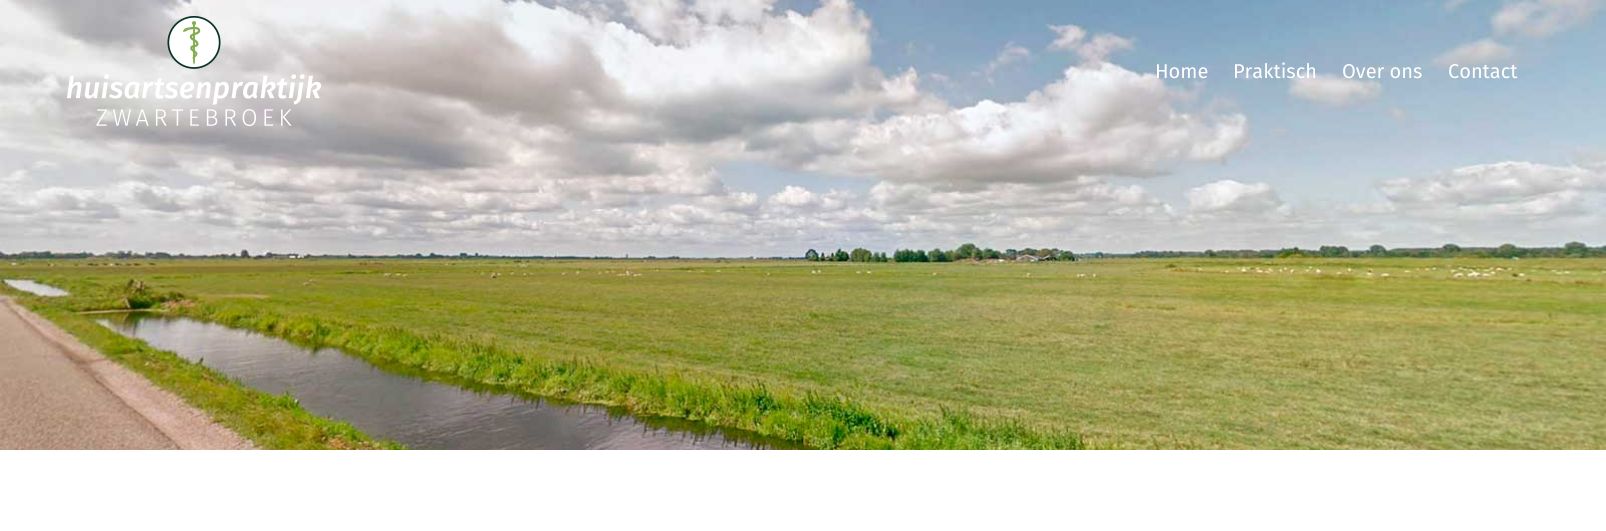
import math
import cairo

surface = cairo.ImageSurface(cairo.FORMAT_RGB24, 1606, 531)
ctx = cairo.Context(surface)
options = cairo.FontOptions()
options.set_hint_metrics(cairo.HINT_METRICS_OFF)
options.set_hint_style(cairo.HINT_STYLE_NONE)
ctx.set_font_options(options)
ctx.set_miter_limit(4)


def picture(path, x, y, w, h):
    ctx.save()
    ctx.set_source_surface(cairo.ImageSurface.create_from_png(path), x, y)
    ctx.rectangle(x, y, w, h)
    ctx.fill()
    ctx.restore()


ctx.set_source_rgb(1, 1, 1)
ctx.paint()
picture("img1.png", 0, 0, 1606, 450)
picture("img2.png", 67, 16, 254, 110)
ctx.select_font_face("Fira Sans")
ctx.set_font_size(20)
ctx.set_source_rgb(1, 1, 1)
ctx.move_to(1155, 78)
ctx.show_text("Home")
ctx.move_to(1233, 78)
ctx.show_text("Praktisch")
ctx.move_to(1342, 78)
ctx.show_text("Over ons")
ctx.move_to(1448, 78)
ctx.show_text("Contact")
surface.write_to_png("page.png")
